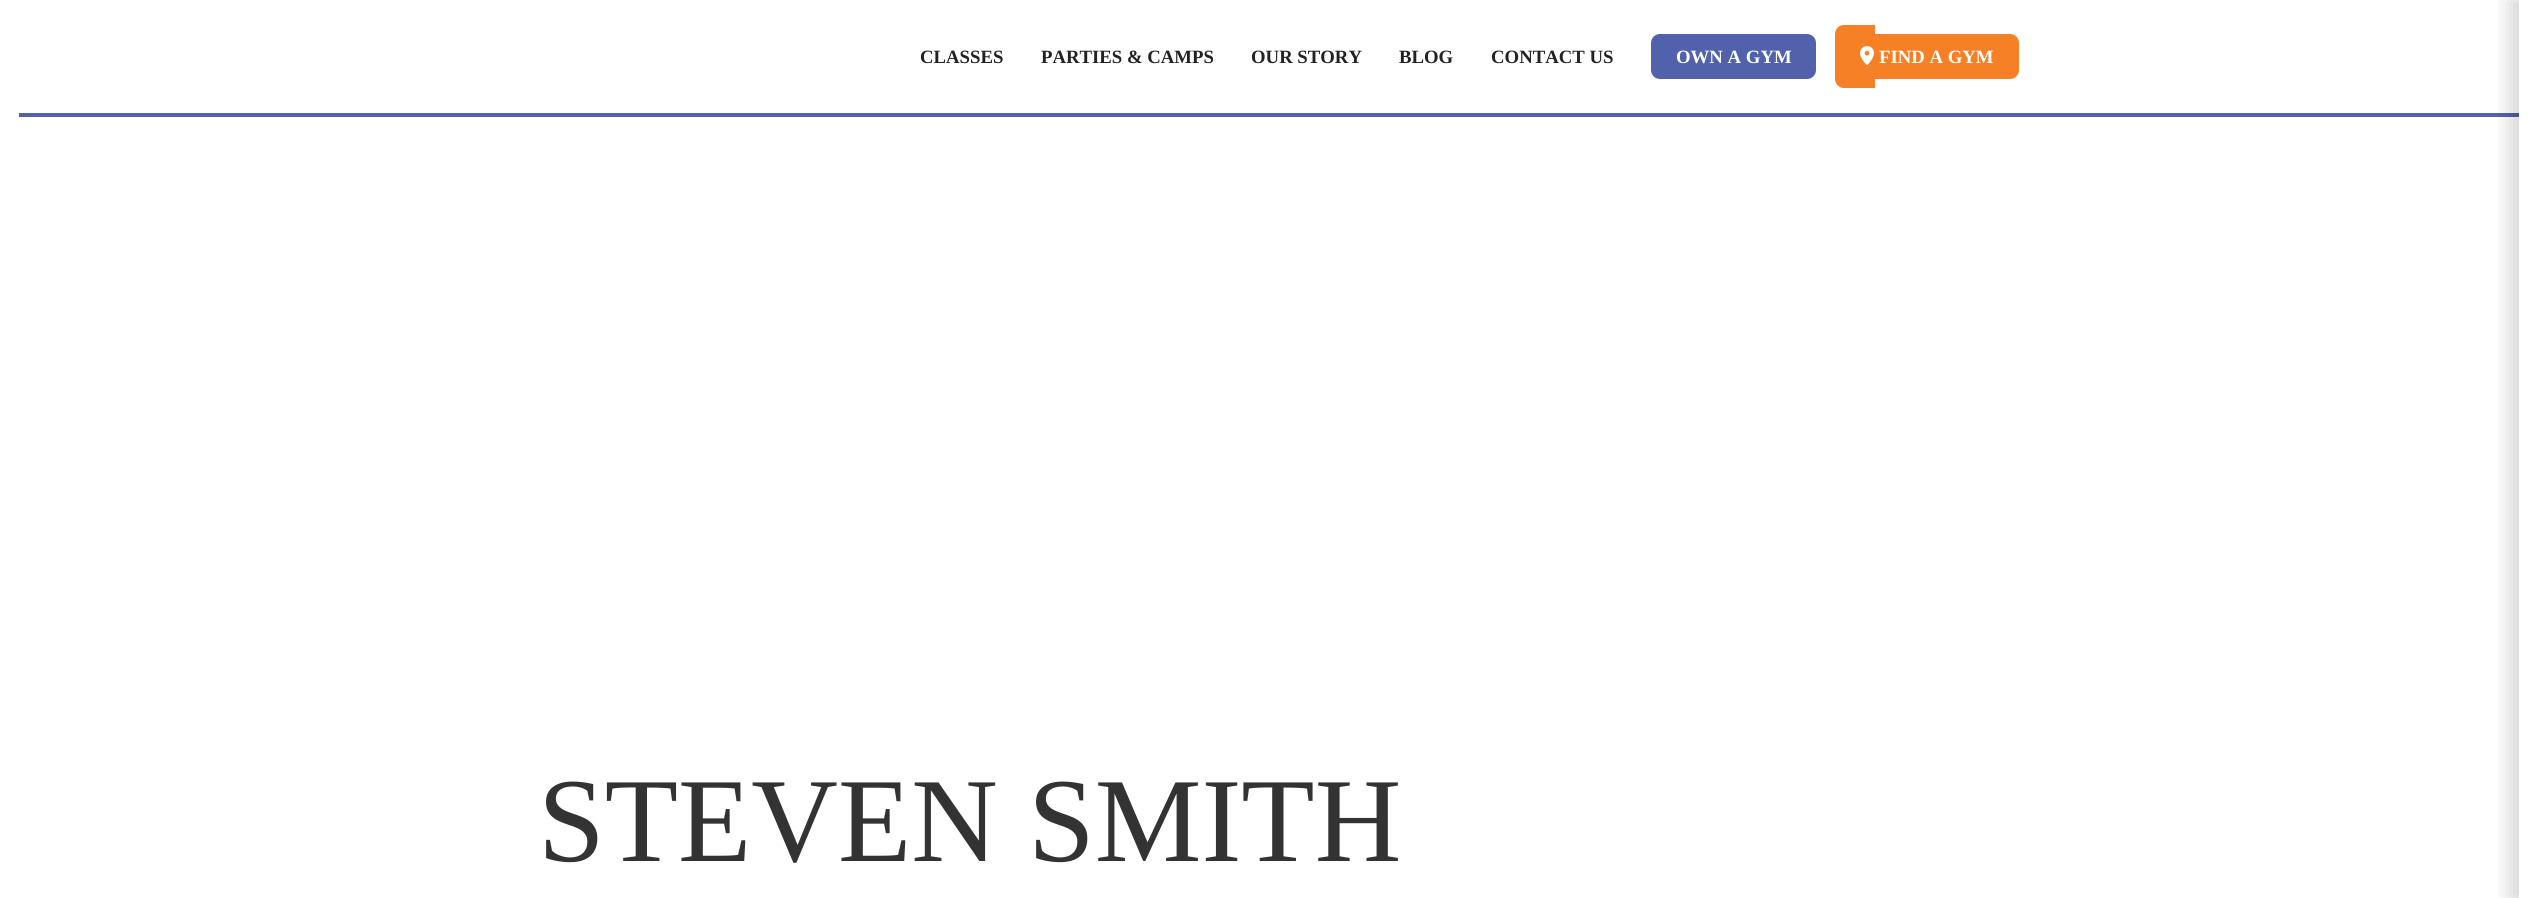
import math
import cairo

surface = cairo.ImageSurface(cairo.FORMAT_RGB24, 2537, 898)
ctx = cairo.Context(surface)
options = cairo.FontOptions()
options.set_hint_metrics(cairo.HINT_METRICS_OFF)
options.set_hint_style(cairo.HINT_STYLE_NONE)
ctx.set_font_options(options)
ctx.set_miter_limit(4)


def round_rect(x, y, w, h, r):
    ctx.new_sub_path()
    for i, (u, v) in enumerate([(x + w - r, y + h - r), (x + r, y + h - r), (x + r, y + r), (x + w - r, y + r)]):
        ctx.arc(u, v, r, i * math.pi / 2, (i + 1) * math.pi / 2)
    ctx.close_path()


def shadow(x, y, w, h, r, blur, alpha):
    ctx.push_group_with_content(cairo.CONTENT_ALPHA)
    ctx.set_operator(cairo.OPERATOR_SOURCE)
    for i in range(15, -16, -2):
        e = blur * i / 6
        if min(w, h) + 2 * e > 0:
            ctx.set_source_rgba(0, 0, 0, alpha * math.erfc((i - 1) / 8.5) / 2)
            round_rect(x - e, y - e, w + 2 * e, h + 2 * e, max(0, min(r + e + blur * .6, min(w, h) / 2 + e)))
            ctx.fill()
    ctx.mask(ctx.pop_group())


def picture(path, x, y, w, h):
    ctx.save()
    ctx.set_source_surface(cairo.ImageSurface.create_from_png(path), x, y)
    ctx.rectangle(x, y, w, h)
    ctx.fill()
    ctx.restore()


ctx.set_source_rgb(1, 1, 1)
ctx.paint()
ctx.select_font_face("Liberation Serif", cairo.FONT_SLANT_NORMAL, cairo.FONT_WEIGHT_BOLD)
ctx.set_font_size(18.75)
ctx.set_source_rgb(0.133, 0.133, 0.133)
ctx.move_to(920, 63)
ctx.show_text("CLASSES")
ctx.move_to(1041, 63)
ctx.show_text("PARTIES & CAMPS")
ctx.move_to(1251, 63)
ctx.show_text("OUR STORY")
ctx.move_to(1399, 63)
ctx.show_text("BLOG")
ctx.move_to(1491, 63)
ctx.show_text("CONTACT US")
ctx.set_source_rgb(0.322, 0.38, 0.675)
round_rect(1651, 34, 165, 45, 9)
ctx.fill()
ctx.set_source_rgb(1, 1, 1)
ctx.move_to(1676, 63)
ctx.show_text("OWN A GYM")
ctx.set_source_rgb(0.961, 0.502, 0.145)
ctx.new_path()
ctx.move_to(1844, 25)
ctx.line_to(1875, 25)
ctx.line_to(1875, 88)
ctx.line_to(1844, 88)
ctx.curve_to(1839, 88, 1835, 84, 1835, 79)
ctx.line_to(1835, 34)
ctx.curve_to(1835, 29, 1839, 25, 1844, 25)
ctx.close_path()
ctx.fill()
ctx.new_path()
ctx.move_to(1875, 34)
ctx.line_to(2010, 34)
ctx.curve_to(2015, 34, 2019, 38, 2019, 43)
ctx.line_to(2019, 70)
ctx.curve_to(2019, 75, 2015, 79, 2010, 79)
ctx.line_to(1875, 79)
ctx.close_path()
ctx.fill()
picture("img1.png", 1860, 46, 14, 19)
ctx.set_source_rgb(1, 1, 1)
ctx.move_to(1879, 63)
ctx.show_text("FIND A GYM")
ctx.set_source_rgb(0.322, 0.38, 0.675)
ctx.rectangle(19, 113, 2500, 4)
ctx.fill()
ctx.save()
ctx.rectangle(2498, 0, 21, 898)
ctx.clip()
ctx.set_source_rgb(0, 0, 0)
shadow(2511, 0, 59, 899, 0, 11, 0.18)
ctx.restore()
ctx.select_font_face("Liberation Serif")
ctx.set_font_size(120)
ctx.set_source_rgb(0.2, 0.2, 0.2)
ctx.move_to(538, 861)
ctx.show_text("STEVEN SMITH")
surface.write_to_png("page.png")
